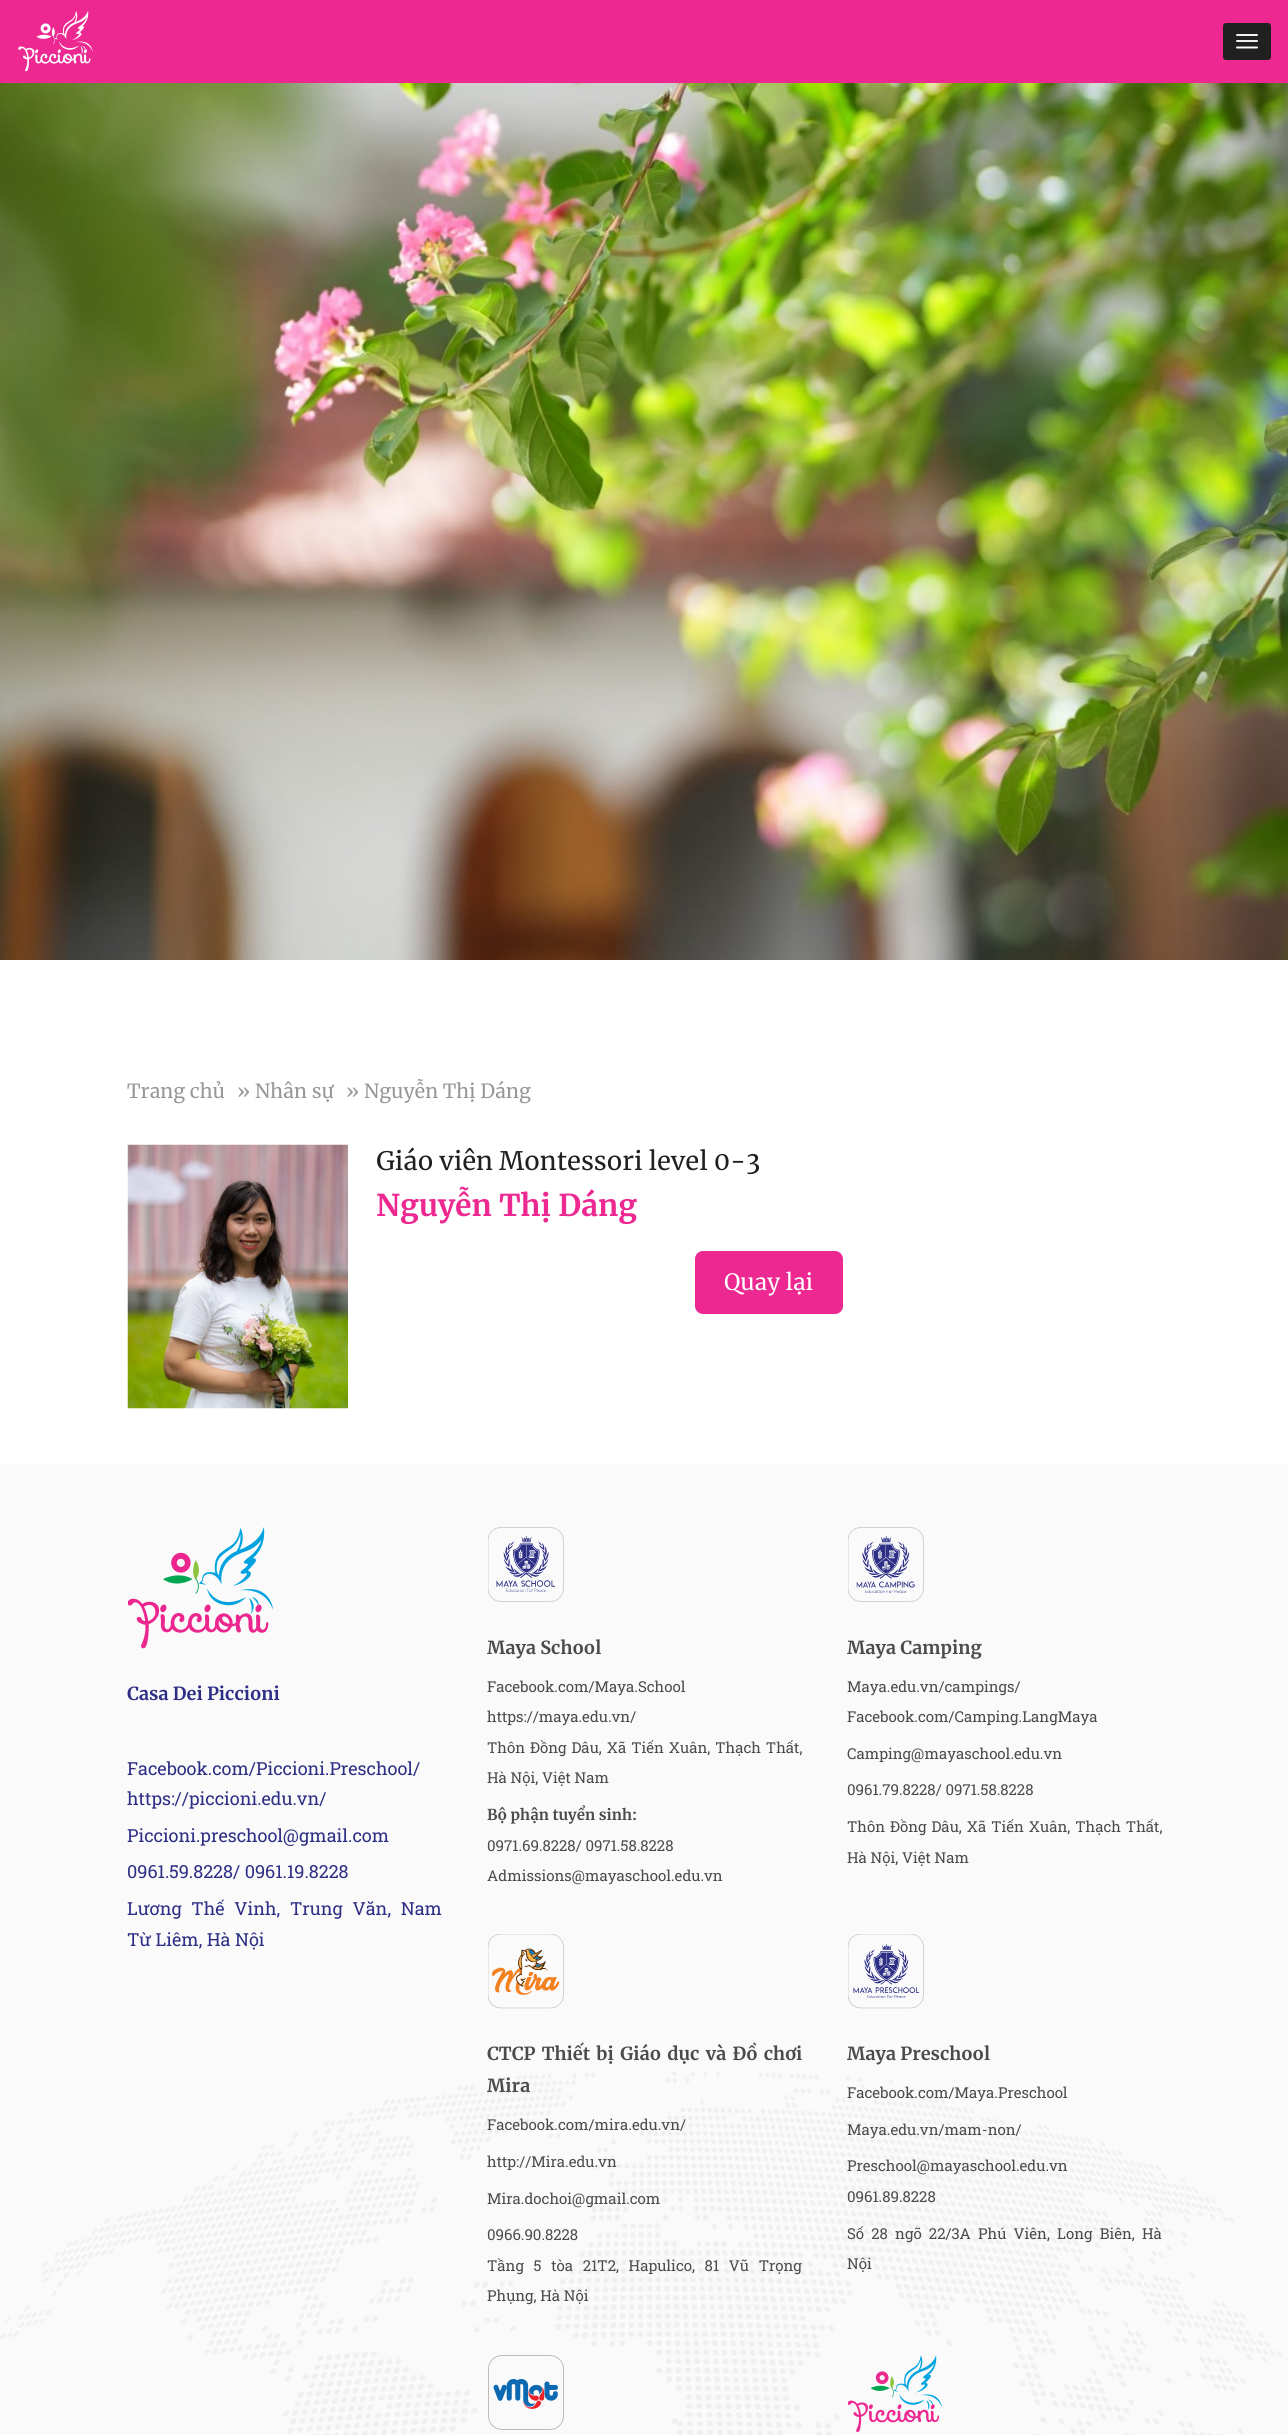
import math
import cairo

surface = cairo.ImageSurface(cairo.FORMAT_RGB24, 1288, 2435)
ctx = cairo.Context(surface)
options = cairo.FontOptions()
options.set_hint_metrics(cairo.HINT_METRICS_OFF)
options.set_hint_style(cairo.HINT_STYLE_NONE)
ctx.set_font_options(options)
ctx.set_miter_limit(4)


def spaced_text(x, y, s, letter, word):
    ctx.move_to(x, y)
    for ch in s:
        ctx.show_text(ch)
        ctx.rel_move_to(letter + word * (ch == ' '), 0)


def round_rect(x, y, w, h, r):
    ctx.new_sub_path()
    for i, (u, v) in enumerate([(x + w - r, y + h - r), (x + r, y + h - r), (x + r, y + r), (x + w - r, y + r)]):
        ctx.arc(u, v, r, i * math.pi / 2, (i + 1) * math.pi / 2)
    ctx.close_path()


def picture(path, x, y, w, h):
    ctx.save()
    ctx.set_source_surface(cairo.ImageSurface.create_from_png(path), x, y)
    ctx.rectangle(x, y, w, h)
    ctx.fill()
    ctx.restore()


ctx.set_source_rgb(1, 1, 1)
ctx.paint()
ctx.set_source_rgb(0.929, 0.157, 0.569)
ctx.rectangle(0, 0, 1288, 83)
ctx.fill()
picture("img1.png", 18, 11, 75, 61)
ctx.set_source_rgb(0.125, 0.125, 0.125)
round_rect(1223, 23, 48, 37, 3)
ctx.fill()
ctx.new_path()
ctx.move_to(1237, 35)
ctx.line_to(1257, 35)
ctx.move_to(1237, 41)
ctx.line_to(1257, 41)
ctx.move_to(1237, 47.5)
ctx.line_to(1257, 47.5)
ctx.set_source_rgb(1, 1, 1)
ctx.set_line_width(1.9)
ctx.set_line_cap(cairo.LINE_CAP_ROUND)
ctx.set_line_join(cairo.LINE_JOIN_ROUND)
ctx.stroke()
picture("img2.png", 0, 83, 1288, 877)
ctx.select_font_face("Merriweather")
ctx.set_font_size(19.5)
ctx.set_source_rgb(0.592, 0.592, 0.592)
ctx.move_to(127, 1098)
ctx.show_text("Trang chủ")
ctx.move_to(237, 1098)
ctx.show_text("» Nhân sự")
ctx.move_to(346, 1098)
ctx.show_text("» Nguyễn Thị Dáng")
picture("img3.png", 127, 1144, 221, 265)
ctx.set_font_size(25.5)
ctx.set_source_rgb(0.125, 0.125, 0.125)
ctx.move_to(376, 1170)
ctx.show_text("Giáo viên Montessori level 0-3")
ctx.select_font_face("Merriweather", cairo.FONT_SLANT_NORMAL, cairo.FONT_WEIGHT_BOLD)
ctx.set_font_size(30)
ctx.set_source_rgb(0.929, 0.157, 0.569)
ctx.move_to(376, 1216)
ctx.show_text("Nguyễn Thị Dáng")
round_rect(695, 1251, 148, 63, 8)
ctx.fill()
ctx.select_font_face("Merriweather")
ctx.set_font_size(22.5)
ctx.set_source_rgb(1, 1, 1)
ctx.move_to(724, 1290)
ctx.show_text("Quay lại")
ctx.set_source_rgb(0.98, 0.98, 0.98)
ctx.rectangle(0, 1464, 1288, 971)
ctx.fill()
picture("img4.png", 0, 2071, 1282, 364)
picture("img5.png", 128, 1527, 145, 122)
ctx.select_font_face("Merriweather", cairo.FONT_SLANT_NORMAL, cairo.FONT_WEIGHT_BOLD)
ctx.set_font_size(18)
ctx.set_source_rgb(0.176, 0.18, 0.522)
ctx.move_to(127, 1700)
ctx.show_text("Casa Dei Piccioni")
ctx.select_font_face("Roboto Slab")
ctx.move_to(127, 1775)
ctx.show_text("Facebook.com/Piccioni.Preschool/")
ctx.move_to(127, 1805)
ctx.show_text("https://piccioni.edu.vn/")
ctx.move_to(127, 1842)
ctx.show_text("Piccioni.preschool@gmail.com")
ctx.move_to(127, 1878)
ctx.show_text("0961.59.8228/ 0961.19.8228")
spaced_text(127, 1915, "Lương Thế Vinh, Trung Văn, Nam", 0, 5.25)
ctx.move_to(127, 1946)
ctx.show_text("Từ Liêm, Hà Nội")
picture("img6.png", 488, 1527, 76, 75)
ctx.select_font_face("Merriweather", cairo.FONT_SLANT_NORMAL, cairo.FONT_WEIGHT_BOLD)
ctx.set_source_rgb(0.294, 0.294, 0.294)
ctx.move_to(487, 1654)
ctx.show_text("Maya School")
ctx.select_font_face("Roboto Slab")
ctx.set_font_size(15)
ctx.move_to(487, 1692)
ctx.show_text("Facebook.com/Maya.School")
ctx.move_to(487, 1722)
ctx.show_text("https://maya.edu.vn/")
spaced_text(487, 1753, "Thôn Đồng Dâu, Xã Tiến Xuân, Thạch Thất,", 0, 1.25)
ctx.move_to(487, 1783)
ctx.show_text("Hà Nội, Việt Nam")
ctx.select_font_face("Merriweather", cairo.FONT_SLANT_NORMAL, cairo.FONT_WEIGHT_BOLD)
ctx.move_to(487, 1820)
ctx.show_text("Bộ phận tuyển sinh:")
ctx.select_font_face("Roboto Slab")
ctx.move_to(487, 1851)
ctx.show_text("0971.69.8228/ 0971.58.8228")
ctx.move_to(487, 1881)
ctx.show_text("Admissions@mayaschool.edu.vn")
picture("img7.png", 848, 1527, 76, 75)
ctx.select_font_face("Merriweather", cairo.FONT_SLANT_NORMAL, cairo.FONT_WEIGHT_BOLD)
ctx.set_font_size(18)
ctx.move_to(847, 1654)
ctx.show_text("Maya Camping")
ctx.select_font_face("Roboto Slab")
ctx.set_font_size(15)
ctx.move_to(847, 1692)
ctx.show_text("Maya.edu.vn/campings/")
ctx.move_to(847, 1722)
ctx.show_text("Facebook.com/Camping.LangMaya")
ctx.move_to(847, 1759)
ctx.show_text("Camping@mayaschool.edu.vn")
ctx.move_to(847, 1795)
ctx.show_text("0961.79.8228/ 0971.58.8228")
spaced_text(847, 1832, "Thôn Đồng Dâu, Xã Tiến Xuân, Thạch Thất,", 0, 1.25)
ctx.move_to(847, 1863)
ctx.show_text("Hà Nội, Việt Nam")
picture("img8.png", 488, 1934, 76, 75)
ctx.select_font_face("Merriweather", cairo.FONT_SLANT_NORMAL, cairo.FONT_WEIGHT_BOLD)
ctx.set_font_size(18)
spaced_text(487, 2060, "CTCP Thiết bị Giáo dục và Đồ chơi", 0, 2)
ctx.move_to(487, 2092)
ctx.show_text("Mira")
ctx.select_font_face("Roboto Slab")
ctx.set_font_size(15)
ctx.move_to(487, 2130)
ctx.show_text("Facebook.com/mira.edu.vn/")
ctx.move_to(487, 2167)
ctx.show_text("http://Mira.edu.vn")
ctx.move_to(487, 2204)
ctx.show_text("Mira.dochoi@gmail.com")
ctx.move_to(487, 2240)
ctx.show_text("0966.90.8228")
spaced_text(487, 2271, "Tầng 5 tòa 21T2, Hapulico, 81 Vũ Trọng", 0, 6)
ctx.move_to(487, 2301)
ctx.show_text("Phụng, Hà Nội")
picture("img9.png", 848, 1934, 76, 75)
ctx.select_font_face("Merriweather", cairo.FONT_SLANT_NORMAL, cairo.FONT_WEIGHT_BOLD)
ctx.set_font_size(18)
ctx.move_to(847, 2060)
ctx.show_text("Maya Preschool")
ctx.select_font_face("Roboto Slab")
ctx.set_font_size(15)
ctx.move_to(847, 2098)
ctx.show_text("Facebook.com/Maya.Preschool")
ctx.move_to(847, 2135)
ctx.show_text("Maya.edu.vn/mam-non/")
ctx.move_to(847, 2171)
ctx.show_text("Preschool@mayaschool.edu.vn")
ctx.move_to(847, 2202)
ctx.show_text("0961.89.8228")
spaced_text(847, 2239, "Số 28 ngõ 22/3A Phú Viên, Long Biên, Hà", 0, 3.5)
ctx.move_to(847, 2269)
ctx.show_text("Nội")
picture("img10.png", 488, 2355, 76, 75)
picture("img11.png", 848, 2355, 94, 78)
surface.write_to_png("page.png")
